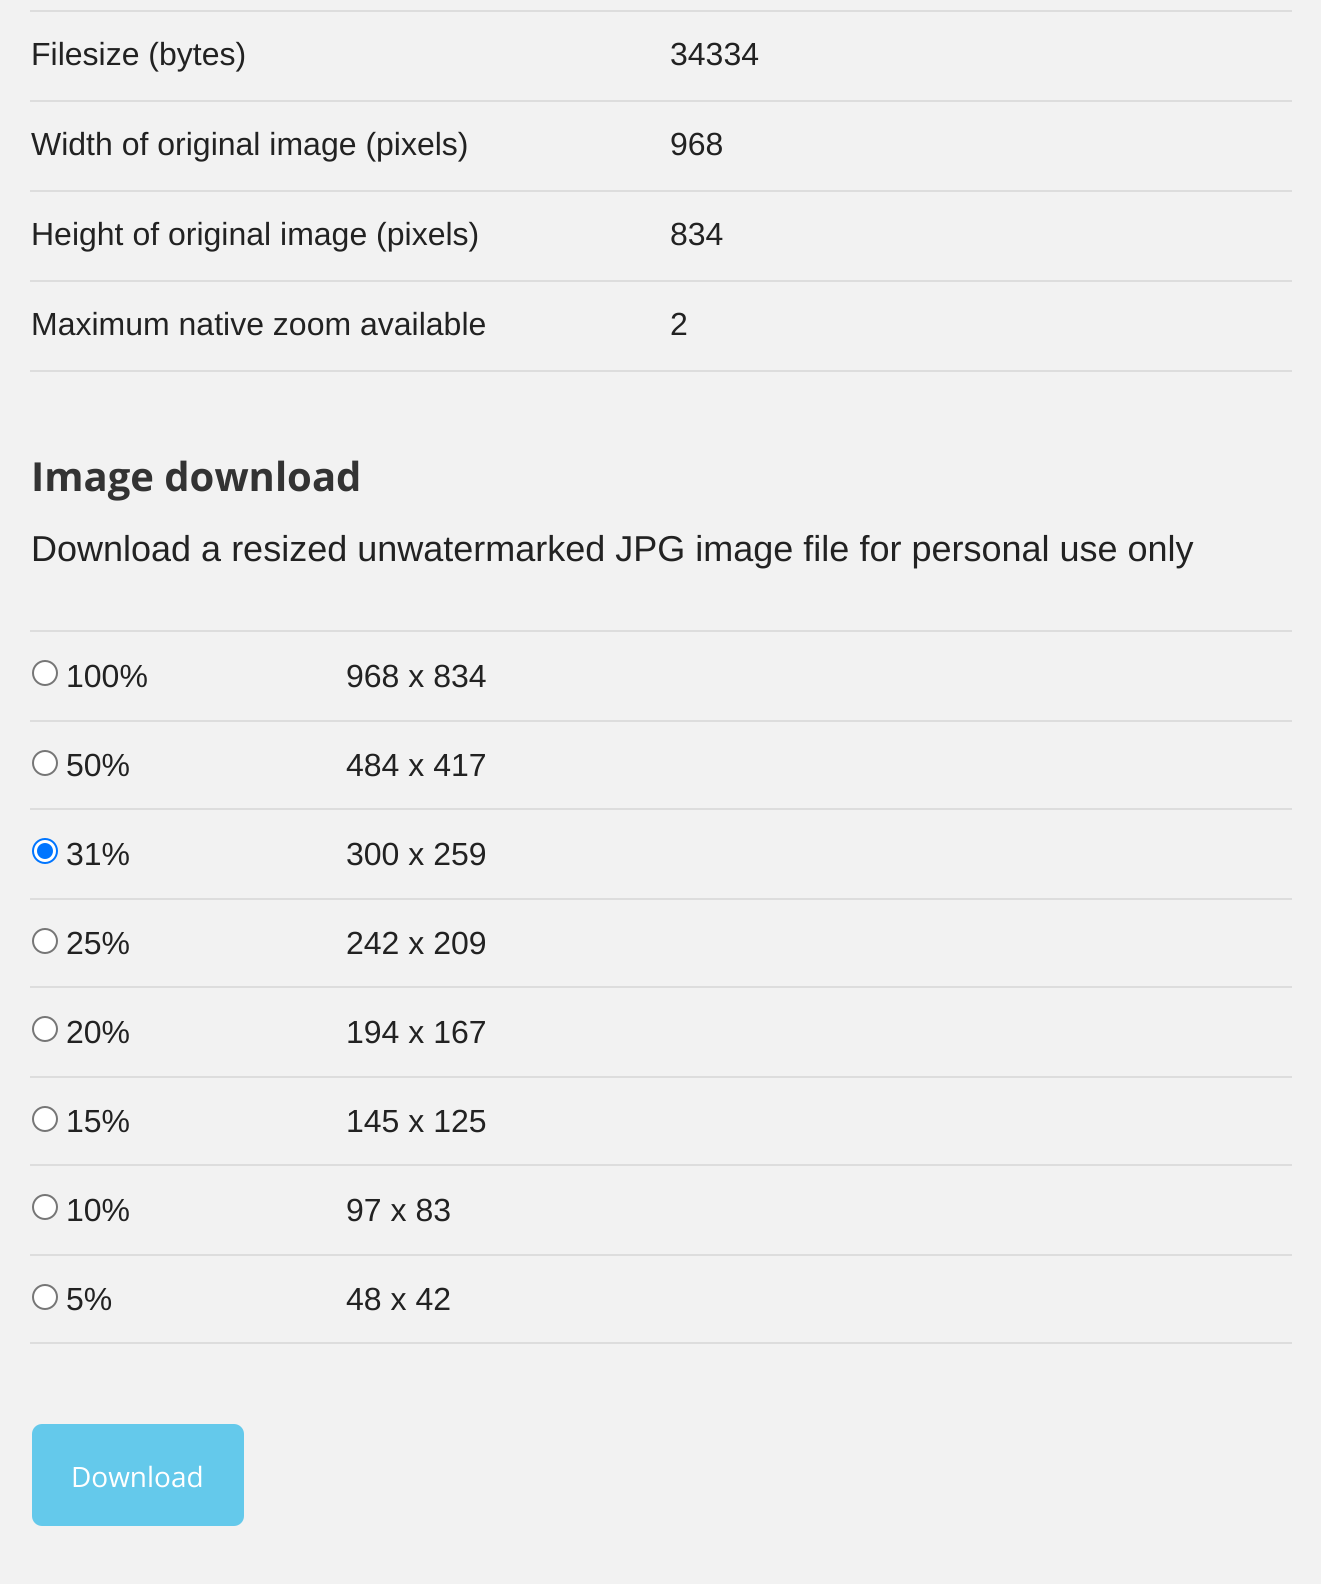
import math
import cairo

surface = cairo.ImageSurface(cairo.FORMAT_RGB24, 1321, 1584)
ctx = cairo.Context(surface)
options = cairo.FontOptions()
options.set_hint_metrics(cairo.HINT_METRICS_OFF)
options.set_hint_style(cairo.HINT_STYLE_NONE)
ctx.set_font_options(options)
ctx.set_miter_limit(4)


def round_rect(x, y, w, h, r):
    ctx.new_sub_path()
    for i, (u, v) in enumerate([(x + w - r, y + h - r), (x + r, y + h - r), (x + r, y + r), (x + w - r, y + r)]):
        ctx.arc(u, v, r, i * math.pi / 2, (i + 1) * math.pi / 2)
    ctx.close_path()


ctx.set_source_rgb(0.949, 0.949, 0.949)
ctx.paint()
ctx.set_source_rgb(0.867, 0.867, 0.867)
ctx.rectangle(30, 370, 1262, 2)
ctx.fill()
ctx.select_font_face("Liberation Sans")
ctx.set_font_size(32)
ctx.set_source_rgb(0.133, 0.133, 0.133)
ctx.move_to(31, 65)
ctx.show_text("Filesize (bytes)")
ctx.set_source_rgb(0.867, 0.867, 0.867)
ctx.rectangle(30, 10, 1262, 2)
ctx.fill()
ctx.set_source_rgb(0.133, 0.133, 0.133)
ctx.move_to(670, 65)
ctx.show_text("34334")
ctx.move_to(31, 155)
ctx.show_text("Width of original image (pixels)")
ctx.set_source_rgb(0.867, 0.867, 0.867)
ctx.rectangle(30, 100, 1262, 2)
ctx.fill()
ctx.set_source_rgb(0.133, 0.133, 0.133)
ctx.move_to(670, 155)
ctx.show_text("968")
ctx.move_to(31, 245)
ctx.show_text("Height of original image (pixels)")
ctx.set_source_rgb(0.867, 0.867, 0.867)
ctx.rectangle(30, 190, 1262, 2)
ctx.fill()
ctx.set_source_rgb(0.133, 0.133, 0.133)
ctx.move_to(670, 245)
ctx.show_text("834")
ctx.move_to(31, 335)
ctx.show_text("Maximum native zoom available")
ctx.set_source_rgb(0.867, 0.867, 0.867)
ctx.rectangle(30, 280, 1262, 2)
ctx.fill()
ctx.set_source_rgb(0.133, 0.133, 0.133)
ctx.move_to(670, 335)
ctx.show_text("2")
ctx.select_font_face("Open Sans", cairo.FONT_SLANT_NORMAL, cairo.FONT_WEIGHT_BOLD)
ctx.set_font_size(40)
ctx.set_source_rgb(0.2, 0.2, 0.2)
ctx.move_to(31, 491)
ctx.show_text("Image download")
ctx.select_font_face("Liberation Sans")
ctx.set_font_size(36)
ctx.set_source_rgb(0.133, 0.133, 0.133)
ctx.move_to(31, 561)
ctx.show_text("Download a resized unwatermarked JPG image file for personal use only")
ctx.set_source_rgb(0.867, 0.867, 0.867)
ctx.rectangle(30, 1342, 1262, 2)
ctx.fill()
ctx.rectangle(30, 630, 1262, 2)
ctx.fill()
ctx.set_source_rgb(1, 1, 1)
ctx.arc(45, 673, 12, 0, 2 * math.pi)
ctx.fill_preserve()
ctx.set_source_rgb(0.463, 0.463, 0.463)
ctx.stroke()
ctx.set_font_size(32)
ctx.set_source_rgb(0.133, 0.133, 0.133)
ctx.move_to(66, 687)
ctx.show_text("100%")
ctx.move_to(346, 687)
ctx.show_text("968 x 834")
ctx.set_source_rgb(0.867, 0.867, 0.867)
ctx.rectangle(30, 720, 1262, 2)
ctx.fill()
ctx.set_source_rgb(1, 1, 1)
ctx.arc(45, 763, 12, 0, 2 * math.pi)
ctx.fill_preserve()
ctx.set_source_rgb(0.463, 0.463, 0.463)
ctx.stroke()
ctx.set_source_rgb(0.133, 0.133, 0.133)
ctx.move_to(66, 776)
ctx.show_text("50%")
ctx.move_to(346, 776)
ctx.show_text("484 x 417")
ctx.set_source_rgb(0.867, 0.867, 0.867)
ctx.rectangle(30, 808, 1262, 2)
ctx.fill()
ctx.set_source_rgb(1, 1, 1)
ctx.arc(45, 851, 12, 0, 2 * math.pi)
ctx.fill_preserve()
ctx.set_source_rgb(0, 0.459, 1)
ctx.stroke()
ctx.arc(45, 851, 8, 0, 2 * math.pi)
ctx.fill()
ctx.set_source_rgb(0.133, 0.133, 0.133)
ctx.move_to(66, 865)
ctx.show_text("31%")
ctx.move_to(346, 865)
ctx.show_text("300 x 259")
ctx.set_source_rgb(0.867, 0.867, 0.867)
ctx.rectangle(30, 898, 1262, 2)
ctx.fill()
ctx.set_source_rgb(1, 1, 1)
ctx.arc(45, 941, 12, 0, 2 * math.pi)
ctx.fill_preserve()
ctx.set_source_rgb(0.463, 0.463, 0.463)
ctx.stroke()
ctx.set_source_rgb(0.133, 0.133, 0.133)
ctx.move_to(66, 954)
ctx.show_text("25%")
ctx.move_to(346, 954)
ctx.show_text("242 x 209")
ctx.set_source_rgb(0.867, 0.867, 0.867)
ctx.rectangle(30, 986, 1262, 2)
ctx.fill()
ctx.set_source_rgb(1, 1, 1)
ctx.arc(45, 1029, 12, 0, 2 * math.pi)
ctx.fill_preserve()
ctx.set_source_rgb(0.463, 0.463, 0.463)
ctx.stroke()
ctx.set_source_rgb(0.133, 0.133, 0.133)
ctx.move_to(66, 1043)
ctx.show_text("20%")
ctx.move_to(346, 1043)
ctx.show_text("194 x 167")
ctx.set_source_rgb(0.867, 0.867, 0.867)
ctx.rectangle(30, 1076, 1262, 2)
ctx.fill()
ctx.set_source_rgb(1, 1, 1)
ctx.arc(45, 1119, 12, 0, 2 * math.pi)
ctx.fill_preserve()
ctx.set_source_rgb(0.463, 0.463, 0.463)
ctx.stroke()
ctx.set_source_rgb(0.133, 0.133, 0.133)
ctx.move_to(66, 1132)
ctx.show_text("15%")
ctx.move_to(346, 1132)
ctx.show_text("145 x 125")
ctx.set_source_rgb(0.867, 0.867, 0.867)
ctx.rectangle(30, 1164, 1262, 2)
ctx.fill()
ctx.set_source_rgb(1, 1, 1)
ctx.arc(45, 1207, 12, 0, 2 * math.pi)
ctx.fill_preserve()
ctx.set_source_rgb(0.463, 0.463, 0.463)
ctx.stroke()
ctx.set_source_rgb(0.133, 0.133, 0.133)
ctx.move_to(66, 1221)
ctx.show_text("10%")
ctx.move_to(346, 1221)
ctx.show_text("97 x 83")
ctx.set_source_rgb(0.867, 0.867, 0.867)
ctx.rectangle(30, 1254, 1262, 2)
ctx.fill()
ctx.set_source_rgb(1, 1, 1)
ctx.arc(45, 1297, 12, 0, 2 * math.pi)
ctx.fill_preserve()
ctx.set_source_rgb(0.463, 0.463, 0.463)
ctx.stroke()
ctx.set_source_rgb(0.133, 0.133, 0.133)
ctx.move_to(66, 1310)
ctx.show_text("5%")
ctx.move_to(346, 1310)
ctx.show_text("48 x 42")
ctx.set_source_rgb(0.392, 0.788, 0.918)
round_rect(32, 1424, 212, 102, 10)
ctx.fill()
ctx.select_font_face("Open Sans")
ctx.set_font_size(28)
ctx.set_source_rgb(1, 1, 1)
ctx.move_to(71, 1487)
ctx.show_text("Download")
surface.write_to_png("page.png")
